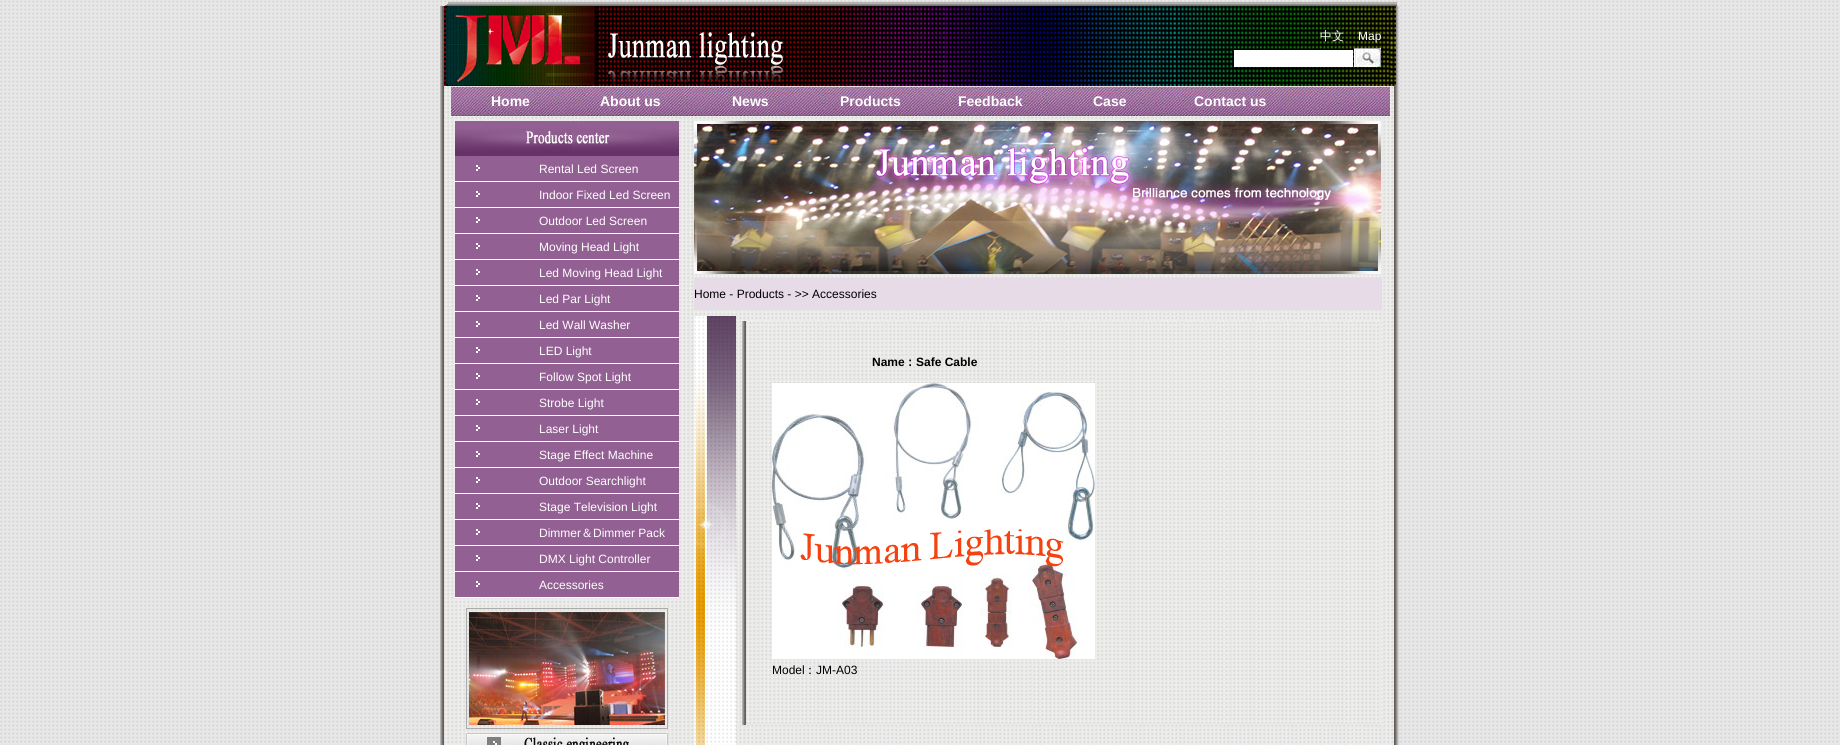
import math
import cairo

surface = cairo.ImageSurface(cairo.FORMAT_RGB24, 1840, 745)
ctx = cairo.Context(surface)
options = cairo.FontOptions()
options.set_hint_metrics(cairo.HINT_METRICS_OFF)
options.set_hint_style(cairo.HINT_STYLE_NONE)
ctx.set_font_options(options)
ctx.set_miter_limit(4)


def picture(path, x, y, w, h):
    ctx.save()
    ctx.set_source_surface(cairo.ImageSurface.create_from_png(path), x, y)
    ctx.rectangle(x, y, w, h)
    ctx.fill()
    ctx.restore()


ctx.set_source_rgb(1, 1, 1)
ctx.paint()
picture("img1.png", 0, 0, 1840, 745)
picture("img2.png", 444, 2, 953, 4)
picture("img3.png", 440, 6, 960, 80)
picture("img4.png", 444, 6, 153, 80)
picture("img5.png", 446, 6, 149, 80)
picture("img6.png", 597, 6, 799, 80)
ctx.select_font_face("WenQuanYi Zen Hei Medium")
ctx.set_font_size(12)
ctx.set_source_rgb(1, 1, 1)
ctx.move_to(1320, 40)
ctx.show_text("中文")
ctx.select_font_face("Liberation Sans")
ctx.move_to(1358, 40)
ctx.show_text("Map")
ctx.rectangle(1234, 50, 119, 17)
ctx.fill()
picture("img7.png", 1354, 48, 27, 19)
picture("img8.png", 440, 86, 960, 30)
picture("img9.png", 451, 86, 939, 30)
ctx.select_font_face("Liberation Sans", cairo.FONT_SLANT_NORMAL, cairo.FONT_WEIGHT_BOLD)
ctx.set_font_size(14)
ctx.move_to(491, 106)
ctx.show_text("Home")
ctx.move_to(600, 106)
ctx.show_text("About us")
ctx.move_to(732, 106)
ctx.show_text("News")
ctx.move_to(840, 106)
ctx.show_text("Products")
ctx.move_to(958, 106)
ctx.show_text("Feedback")
ctx.move_to(1093, 106)
ctx.show_text("Case")
ctx.move_to(1194, 106)
ctx.show_text("Contact us")
picture("img10.png", 440, 116, 960, 629)
picture("img11.png", 455, 121, 224, 35)
picture("img12.png", 455, 156, 224, 26)
ctx.select_font_face("Liberation Sans")
ctx.set_font_size(12)
ctx.move_to(539, 173)
ctx.show_text("Rental Led Screen")
picture("img12.png", 455, 182, 224, 26)
ctx.move_to(539, 199)
ctx.show_text("Indoor Fixed Led Screen")
picture("img12.png", 455, 208, 224, 26)
ctx.move_to(539, 225)
ctx.show_text("Outdoor Led Screen")
picture("img12.png", 455, 234, 224, 26)
ctx.move_to(539, 251)
ctx.show_text("Moving Head Light")
picture("img12.png", 455, 260, 224, 26)
ctx.move_to(539, 277)
ctx.show_text("Led Moving Head Light")
picture("img12.png", 455, 286, 224, 26)
ctx.move_to(539, 303)
ctx.show_text("Led Par Light")
picture("img12.png", 455, 312, 224, 26)
ctx.move_to(539, 329)
ctx.show_text("Led Wall Washer")
picture("img12.png", 455, 338, 224, 26)
ctx.move_to(539, 355)
ctx.show_text("LED Light")
picture("img12.png", 455, 364, 224, 26)
ctx.move_to(539, 381)
ctx.show_text("Follow Spot Light")
picture("img12.png", 455, 390, 224, 26)
ctx.move_to(539, 407)
ctx.show_text("Strobe Light")
picture("img12.png", 455, 416, 224, 26)
ctx.move_to(539, 433)
ctx.show_text("Laser Light")
picture("img12.png", 455, 442, 224, 26)
ctx.move_to(539, 459)
ctx.show_text("Stage Effect Machine")
picture("img12.png", 455, 468, 224, 26)
ctx.move_to(539, 485)
ctx.show_text("Outdoor Searchlight")
picture("img12.png", 455, 494, 224, 26)
ctx.move_to(539, 511)
ctx.show_text("Stage Television Light")
picture("img12.png", 455, 520, 224, 26)
ctx.move_to(539, 537)
ctx.show_text("Dimmer")
ctx.select_font_face("WenQuanYi Zen Hei Medium")
ctx.move_to(581, 537)
ctx.show_text("＆")
ctx.select_font_face("Liberation Sans")
ctx.move_to(593, 537)
ctx.show_text("Dimmer Pack")
picture("img12.png", 455, 546, 224, 26)
ctx.move_to(539, 563)
ctx.show_text("DMX Light Controller")
picture("img12.png", 455, 572, 224, 26)
ctx.move_to(539, 589)
ctx.show_text("Accessories")
ctx.rectangle(466.5, 608.5, 201, 120)
ctx.set_source_rgb(0.675, 0.675, 0.675)
ctx.set_line_width(1)
ctx.stroke()
picture("img13.png", 469, 612, 196, 113)
picture("img14.png", 466, 733, 202, 12)
picture("img15.png", 694, 121, 687, 153)
ctx.set_source_rgb(0.906, 0.859, 0.91)
ctx.rectangle(694, 278, 688, 32)
ctx.fill()
ctx.set_source_rgb(0, 0, 0)
ctx.move_to(694, 298)
ctx.show_text("Home - Products - >> Accessories")
picture("img16.png", 694, 316, 42, 429)
picture("img17.png", 742, 321, 640, 404)
ctx.select_font_face("Liberation Sans", cairo.FONT_SLANT_NORMAL, cairo.FONT_WEIGHT_BOLD)
ctx.move_to(872, 366)
ctx.show_text("Name")
ctx.select_font_face("WenQuanYi Zen Hei", cairo.FONT_SLANT_NORMAL, cairo.FONT_WEIGHT_BOLD)
ctx.move_to(904, 366)
ctx.show_text("：")
ctx.select_font_face("Liberation Sans", cairo.FONT_SLANT_NORMAL, cairo.FONT_WEIGHT_BOLD)
ctx.move_to(916, 366)
ctx.show_text("Safe Cable")
picture("img18.png", 772, 383, 323, 276)
ctx.select_font_face("Liberation Sans")
ctx.move_to(772, 674)
ctx.show_text("Model")
ctx.select_font_face("WenQuanYi Zen Hei Medium")
ctx.move_to(804, 674)
ctx.show_text("：")
ctx.select_font_face("Liberation Sans")
ctx.move_to(816, 674)
ctx.show_text("JM-A03")
surface.write_to_png("page.png")
